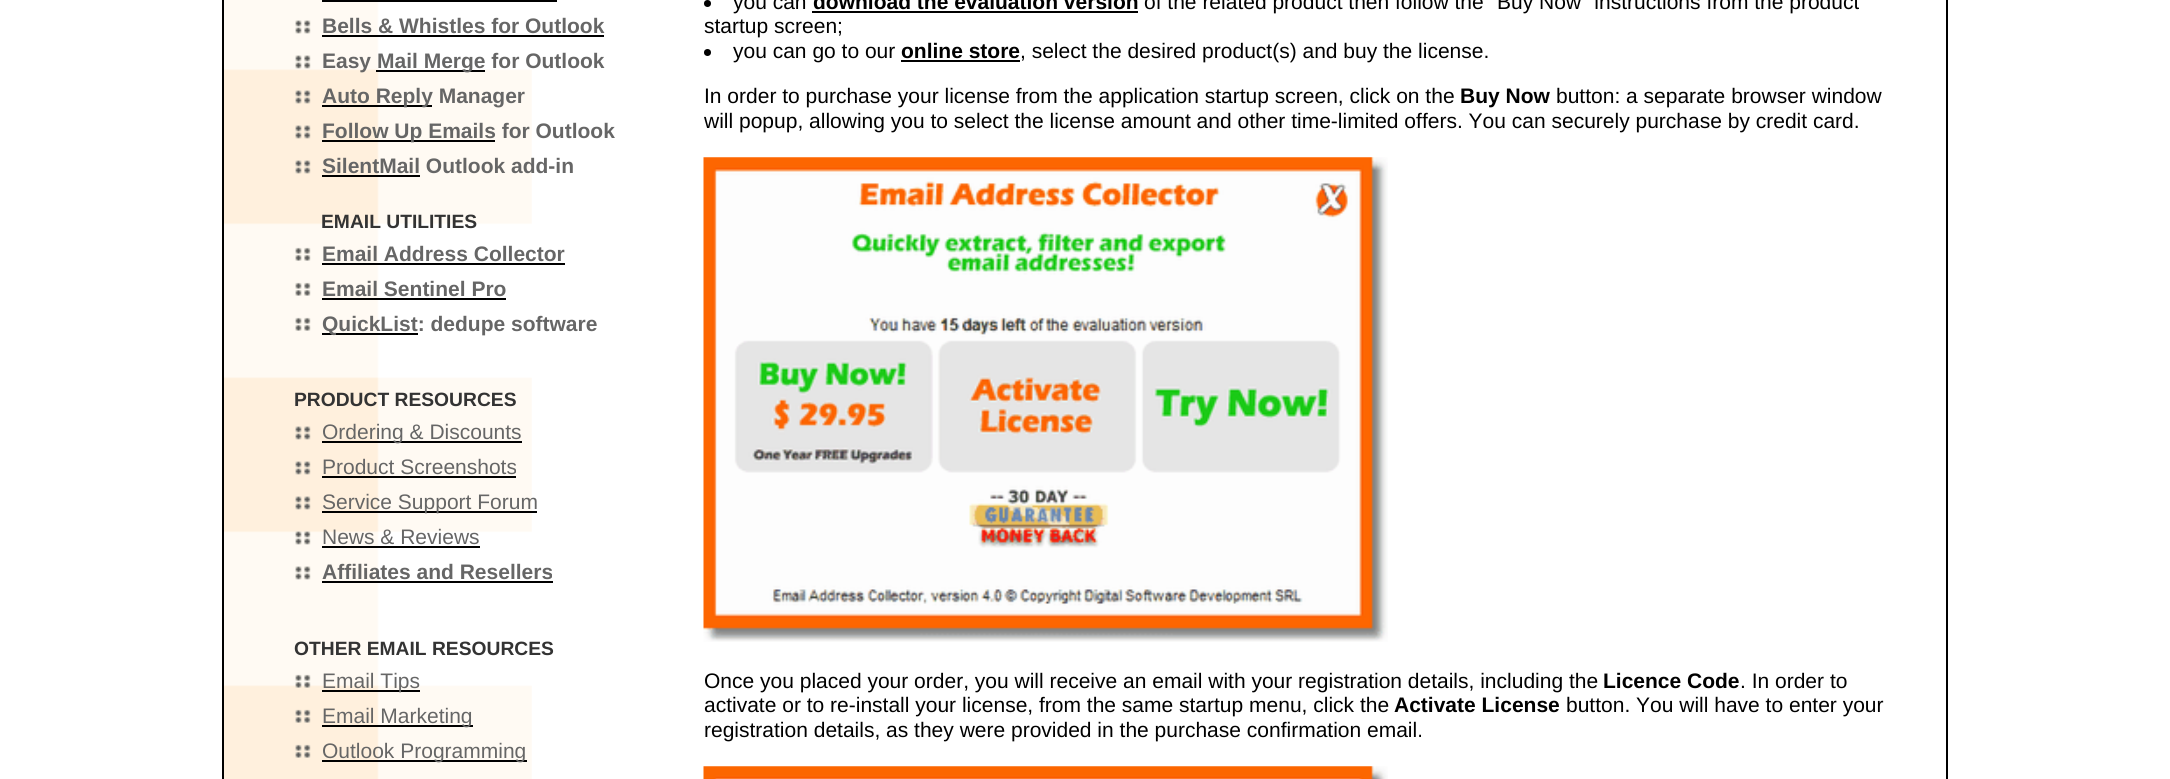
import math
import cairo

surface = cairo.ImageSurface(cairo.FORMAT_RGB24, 2170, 779)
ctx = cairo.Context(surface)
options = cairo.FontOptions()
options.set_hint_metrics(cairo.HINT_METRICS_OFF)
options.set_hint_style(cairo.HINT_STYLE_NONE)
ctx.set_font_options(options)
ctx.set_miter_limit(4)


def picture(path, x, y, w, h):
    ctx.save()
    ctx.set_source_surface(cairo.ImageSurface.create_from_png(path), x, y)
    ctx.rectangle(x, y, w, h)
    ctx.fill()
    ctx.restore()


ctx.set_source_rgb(1, 1, 1)
ctx.paint()
ctx.set_source_rgb(0, 0, 0)
ctx.rectangle(222, 0, 1726, 779)
ctx.fill()
ctx.set_source_rgb(1, 1, 1)
ctx.rectangle(532, 0, 1414, 779)
ctx.fill()
picture("img1.png", 224, 0, 308, 779)
ctx.set_source_rgb(0, 0, 0)
ctx.rectangle(322, 0, 235, 2)
ctx.fill()
picture("img2.png", 295, 20, 16, 14)
ctx.select_font_face("Liberation Sans", cairo.FONT_SLANT_NORMAL, cairo.FONT_WEIGHT_BOLD)
ctx.set_font_size(21)
ctx.set_source_rgb(0.4, 0.4, 0.4)
ctx.move_to(322, 33)
ctx.show_text("Bells & Whistles for Outlook")
ctx.set_source_rgb(0, 0, 0)
ctx.rectangle(322, 35, 282, 2)
ctx.fill()
picture("img2.png", 295, 55, 16, 14)
ctx.set_source_rgb(0.4, 0.4, 0.4)
ctx.move_to(322, 68)
ctx.show_text("Easy")
ctx.set_source_rgb(0, 0, 0)
ctx.rectangle(376, 70, 109, 2)
ctx.fill()
ctx.set_source_rgb(0.4, 0.4, 0.4)
ctx.move_to(377, 68)
ctx.show_text("Mail Merge for Outlook")
picture("img3.png", 295, 90, 16, 14)
ctx.set_source_rgb(0, 0, 0)
ctx.rectangle(322, 105, 110, 2)
ctx.fill()
ctx.set_source_rgb(0.4, 0.4, 0.4)
ctx.move_to(322, 103)
ctx.show_text("Auto Reply Manager")
picture("img3.png", 295, 125, 16, 14)
ctx.set_source_rgb(0, 0, 0)
ctx.rectangle(322, 140, 173, 2)
ctx.fill()
ctx.set_source_rgb(0.4, 0.4, 0.4)
ctx.move_to(322, 138)
ctx.show_text("Follow Up Emails for Outlook")
picture("img3.png", 295, 160, 16, 14)
ctx.move_to(322, 173)
ctx.show_text("SilentMail Outlook add-in")
ctx.set_source_rgb(0, 0, 0)
ctx.rectangle(322, 175, 98, 2)
ctx.fill()
ctx.set_font_size(19.25)
ctx.set_source_rgb(0.2, 0.2, 0.2)
ctx.move_to(321, 228)
ctx.show_text("EMAIL UTILITIES")
picture("img4.png", 295, 247, 16, 14)
ctx.set_font_size(21)
ctx.set_source_rgb(0.4, 0.4, 0.4)
ctx.move_to(322, 261)
ctx.show_text("Email Address Collector")
ctx.set_source_rgb(0, 0, 0)
ctx.rectangle(322, 263, 243, 2)
ctx.fill()
picture("img4.png", 295, 282, 16, 14)
ctx.set_source_rgb(0.4, 0.4, 0.4)
ctx.move_to(322, 296)
ctx.show_text("Email Sentinel Pro")
ctx.set_source_rgb(0, 0, 0)
ctx.rectangle(322, 298, 184, 2)
ctx.fill()
picture("img4.png", 295, 317, 16, 14)
ctx.rectangle(322, 333, 96, 2)
ctx.fill()
ctx.set_source_rgb(0.4, 0.4, 0.4)
ctx.move_to(322, 331)
ctx.show_text("QuickList: dedupe software")
ctx.set_font_size(19.25)
ctx.set_source_rgb(0.2, 0.2, 0.2)
ctx.move_to(294, 406)
ctx.show_text("PRODUCT RESOURCES")
picture("img3.png", 295, 426, 16, 14)
ctx.set_source_rgb(0, 0, 0)
ctx.rectangle(322, 441, 200, 2)
ctx.fill()
ctx.select_font_face("Liberation Sans")
ctx.set_font_size(21)
ctx.set_source_rgb(0.4, 0.4, 0.4)
ctx.move_to(322, 439)
ctx.show_text("Ordering & Discounts")
picture("img3.png", 295, 461, 16, 14)
ctx.move_to(322, 474)
ctx.show_text("Product Screenshots")
ctx.set_source_rgb(0, 0, 0)
ctx.rectangle(322, 476, 194, 2)
ctx.fill()
picture("img3.png", 295, 496, 16, 14)
ctx.rectangle(322, 511, 215, 2)
ctx.fill()
ctx.set_source_rgb(0.4, 0.4, 0.4)
ctx.move_to(322, 509)
ctx.show_text("Service Support Forum")
picture("img5.png", 295, 531, 16, 14)
ctx.move_to(322, 544)
ctx.show_text("News & Reviews")
ctx.set_source_rgb(0, 0, 0)
ctx.rectangle(322, 546, 158, 2)
ctx.fill()
picture("img2.png", 295, 566, 16, 14)
ctx.select_font_face("Liberation Sans", cairo.FONT_SLANT_NORMAL, cairo.FONT_WEIGHT_BOLD)
ctx.set_source_rgb(0.4, 0.4, 0.4)
ctx.move_to(322, 579)
ctx.show_text("Affiliates and Resellers")
ctx.set_source_rgb(0, 0, 0)
ctx.rectangle(322, 581, 231, 2)
ctx.fill()
ctx.set_font_size(19.25)
ctx.set_source_rgb(0.2, 0.2, 0.2)
ctx.move_to(294, 655)
ctx.show_text("OTHER EMAIL RESOURCES")
picture("img6.png", 295, 674, 16, 14)
ctx.set_source_rgb(0, 0, 0)
ctx.rectangle(322, 690, 98, 2)
ctx.fill()
ctx.select_font_face("Liberation Sans")
ctx.set_font_size(21)
ctx.set_source_rgb(0.4, 0.4, 0.4)
ctx.move_to(322, 688)
ctx.show_text("Email Tips")
picture("img7.png", 295, 709, 16, 14)
ctx.set_source_rgb(0, 0, 0)
ctx.rectangle(322, 725, 151, 2)
ctx.fill()
ctx.set_source_rgb(0.4, 0.4, 0.4)
ctx.move_to(322, 723)
ctx.show_text("Email Marketing")
picture("img7.png", 295, 744, 16, 14)
ctx.set_source_rgb(0, 0, 0)
ctx.rectangle(322, 760, 205, 2)
ctx.fill()
ctx.set_source_rgb(0.4, 0.4, 0.4)
ctx.move_to(322, 758)
ctx.show_text("Outlook Programming")
ctx.set_source_rgb(0, 0, 0)
ctx.new_path()
ctx.arc(707.5, 3.5, 3.5, 0, 2 * math.pi)
ctx.fill()
ctx.move_to(733, 9)
ctx.show_text("you can")
ctx.select_font_face("Liberation Sans", cairo.FONT_SLANT_NORMAL, cairo.FONT_WEIGHT_BOLD)
ctx.move_to(813, 9)
ctx.show_text("download the evaluation version")
ctx.rectangle(812, 11, 326, 2)
ctx.fill()
ctx.select_font_face("Liberation Sans")
ctx.move_to(1144, 9)
ctx.show_text("of the related product then follow the \"Buy Now\" instructions from the product")
ctx.move_to(704, 33)
ctx.show_text("startup screen;")
ctx.new_path()
ctx.arc(707.5, 52.5, 3.5, 0, 2 * math.pi)
ctx.fill()
ctx.move_to(733, 58)
ctx.show_text("you can go to our")
ctx.select_font_face("Liberation Sans", cairo.FONT_SLANT_NORMAL, cairo.FONT_WEIGHT_BOLD)
ctx.move_to(901, 58)
ctx.show_text("online store")
ctx.rectangle(901, 60, 119, 2)
ctx.fill()
ctx.select_font_face("Liberation Sans")
ctx.move_to(1020, 58)
ctx.show_text(", select the desired product(s) and buy the license.")
ctx.move_to(704, 103)
ctx.show_text("In order to purchase your license from the application startup screen, click on the")
ctx.select_font_face("Liberation Sans", cairo.FONT_SLANT_NORMAL, cairo.FONT_WEIGHT_BOLD)
ctx.move_to(1460, 103)
ctx.show_text("Buy Now")
ctx.select_font_face("Liberation Sans")
ctx.move_to(1556, 103)
ctx.show_text("button: a separate browser window")
ctx.move_to(704, 128)
ctx.show_text("will popup, allowing you to select the license amount and other time-limited offers. You can securely purchase by credit card.")
picture("img8.png", 703, 157, 685, 485)
ctx.move_to(704, 688)
ctx.show_text("Once you placed your order, you will receive an email with your registration details, including the")
ctx.select_font_face("Liberation Sans", cairo.FONT_SLANT_NORMAL, cairo.FONT_WEIGHT_BOLD)
ctx.move_to(1603, 688)
ctx.show_text("Licence Code")
ctx.select_font_face("Liberation Sans")
ctx.move_to(1740, 688)
ctx.show_text(". In order to")
ctx.move_to(704, 712)
ctx.show_text("activate or to re-install your license, from the same startup menu, click the")
ctx.select_font_face("Liberation Sans", cairo.FONT_SLANT_NORMAL, cairo.FONT_WEIGHT_BOLD)
ctx.move_to(1394, 712)
ctx.show_text("Activate License")
ctx.select_font_face("Liberation Sans")
ctx.move_to(1566, 712)
ctx.show_text("button. You will have to enter your")
ctx.move_to(704, 737)
ctx.show_text("registration details, as they were provided in the purchase confirmation email.")
picture("img9.png", 703, 766, 685, 13)
surface.write_to_png("page.png")
